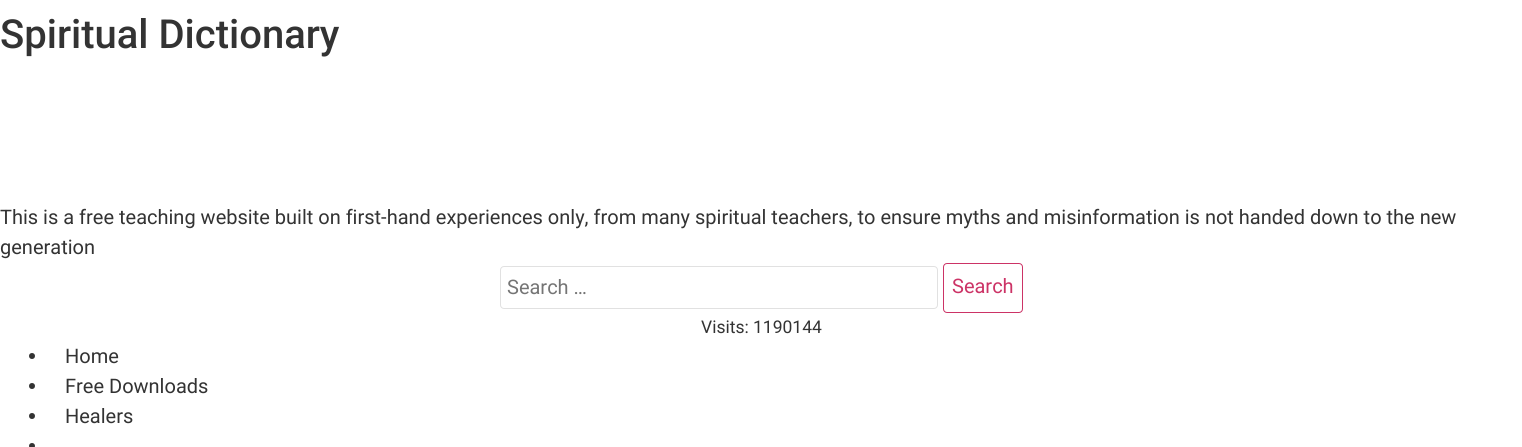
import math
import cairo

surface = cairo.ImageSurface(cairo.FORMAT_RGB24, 1522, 447)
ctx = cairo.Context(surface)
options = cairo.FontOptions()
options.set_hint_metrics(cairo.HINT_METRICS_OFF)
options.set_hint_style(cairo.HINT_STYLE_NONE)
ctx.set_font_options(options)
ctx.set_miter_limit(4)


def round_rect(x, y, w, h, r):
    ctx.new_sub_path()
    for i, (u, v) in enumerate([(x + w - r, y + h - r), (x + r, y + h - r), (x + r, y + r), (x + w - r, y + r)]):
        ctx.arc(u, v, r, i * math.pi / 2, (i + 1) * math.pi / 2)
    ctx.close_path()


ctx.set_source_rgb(1, 1, 1)
ctx.paint()
ctx.select_font_face("Roboto Medium")
ctx.set_font_size(40)
ctx.set_source_rgb(0.2, 0.2, 0.2)
ctx.move_to(0, 48)
ctx.show_text("Spiritual Dictionary")
ctx.select_font_face("Roboto")
ctx.set_font_size(20)
ctx.move_to(0, 224)
ctx.show_text("This is a free teaching website built on first-hand experiences only, from many spiritual teachers, to ensure myths and misinformation is not handed down to the new")
ctx.move_to(0, 254)
ctx.show_text("generation")
round_rect(500.5, 266.5, 437, 42, 3.5)
ctx.set_source_rgb(0.882, 0.882, 0.882)
ctx.set_line_width(1)
ctx.stroke()
ctx.set_source_rgb(0.459, 0.459, 0.459)
ctx.move_to(507, 294)
ctx.show_text("Search …")
round_rect(943.5, 263.5, 79, 49, 3.5)
ctx.set_source_rgb(0.8, 0.2, 0.4)
ctx.stroke()
ctx.move_to(952, 293)
ctx.show_text("Search")
ctx.set_font_size(17.5)
ctx.set_source_rgb(0.2, 0.2, 0.2)
ctx.move_to(701, 333)
ctx.show_text("Visits: 1190144")
ctx.new_path()
ctx.arc(32, 356, 3, 0, 2 * math.pi)
ctx.fill()
ctx.set_font_size(20)
ctx.move_to(65, 363)
ctx.show_text("Home")
ctx.new_path()
ctx.arc(32, 386, 3, 0, 2 * math.pi)
ctx.fill()
ctx.move_to(65, 393)
ctx.show_text("Free Downloads")
ctx.new_path()
ctx.arc(32, 416, 3, 0, 2 * math.pi)
ctx.fill()
ctx.move_to(65, 423)
ctx.show_text("Healers")
ctx.new_path()
ctx.arc(32, 446, 3, 0, 2 * math.pi)
ctx.fill()
surface.write_to_png("page.png")
